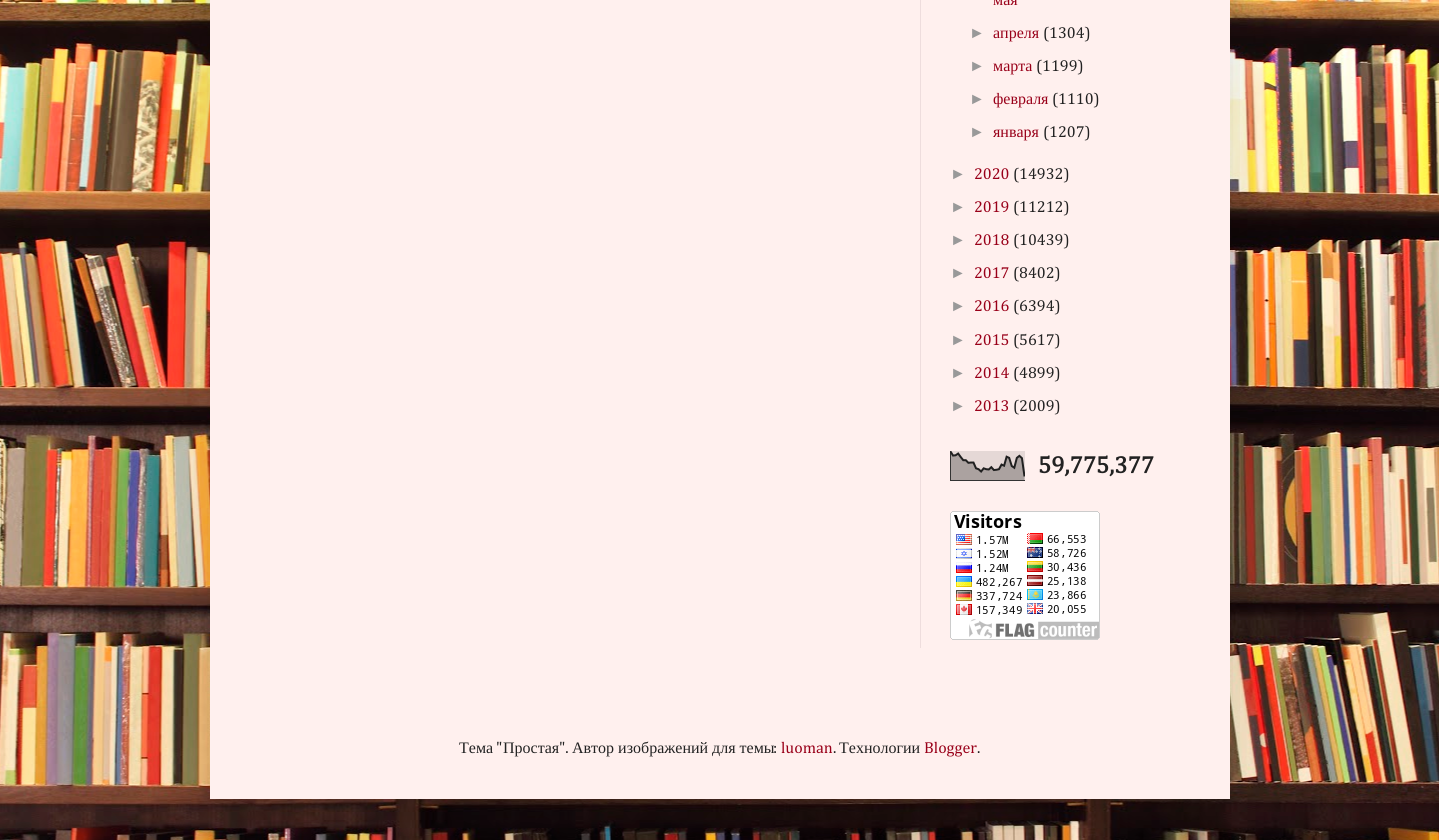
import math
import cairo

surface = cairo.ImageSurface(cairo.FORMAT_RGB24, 1439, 840)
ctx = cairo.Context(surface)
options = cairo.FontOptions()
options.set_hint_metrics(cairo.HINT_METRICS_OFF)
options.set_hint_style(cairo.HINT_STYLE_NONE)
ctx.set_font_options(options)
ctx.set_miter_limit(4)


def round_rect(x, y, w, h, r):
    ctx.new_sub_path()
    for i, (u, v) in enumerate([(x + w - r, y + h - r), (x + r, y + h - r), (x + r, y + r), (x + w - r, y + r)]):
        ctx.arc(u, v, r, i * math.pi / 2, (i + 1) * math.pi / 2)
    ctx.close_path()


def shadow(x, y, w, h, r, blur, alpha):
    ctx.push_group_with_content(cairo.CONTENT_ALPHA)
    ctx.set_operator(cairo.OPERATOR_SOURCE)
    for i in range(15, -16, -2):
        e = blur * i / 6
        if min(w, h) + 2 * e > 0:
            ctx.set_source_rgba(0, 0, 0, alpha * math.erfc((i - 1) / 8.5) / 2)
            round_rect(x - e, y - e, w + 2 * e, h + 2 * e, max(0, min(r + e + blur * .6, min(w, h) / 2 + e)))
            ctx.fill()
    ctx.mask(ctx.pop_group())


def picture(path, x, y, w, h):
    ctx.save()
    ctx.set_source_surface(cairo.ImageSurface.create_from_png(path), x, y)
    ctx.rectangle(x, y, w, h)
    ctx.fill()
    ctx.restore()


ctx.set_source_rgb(1, 1, 1)
ctx.paint()
picture("img1.png", 0, 0, 1439, 840)
ctx.set_source_rgb(0, 0, 0)
shadow(210, -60, 1020, 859, 0, 20, 0.15)
ctx.set_source_rgb(1, 0.941, 0.933)
ctx.rectangle(210, 0, 1020, 799)
ctx.fill()
ctx.set_source_rgb(0.933, 0.867, 0.867)
ctx.rectangle(920, 0, 1, 648)
ctx.fill()
ctx.select_font_face("Liberation Serif")
ctx.set_font_size(16)
ctx.set_source_rgb(0.6, 0, 0.098)
ctx.move_to(993, 5)
ctx.show_text("мая")
ctx.select_font_face("Liberation Sans")
ctx.set_source_rgb(0.6, 0.6, 0.6)
ctx.move_to(969, 38)
ctx.show_text("►")
ctx.select_font_face("Liberation Serif")
ctx.set_source_rgb(0.6, 0, 0.098)
ctx.move_to(993, 38)
ctx.show_text("апреля")
ctx.select_font_face("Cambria")
ctx.set_source_rgb(0.133, 0.133, 0.133)
ctx.move_to(1043, 38)
ctx.show_text("(1304)")
ctx.select_font_face("Liberation Sans")
ctx.set_source_rgb(0.6, 0.6, 0.6)
ctx.move_to(969, 71)
ctx.show_text("►")
ctx.select_font_face("Liberation Serif")
ctx.set_source_rgb(0.6, 0, 0.098)
ctx.move_to(993, 71)
ctx.show_text("марта")
ctx.select_font_face("Cambria")
ctx.set_source_rgb(0.133, 0.133, 0.133)
ctx.move_to(1036, 71)
ctx.show_text("(1199)")
ctx.select_font_face("Liberation Sans")
ctx.set_source_rgb(0.6, 0.6, 0.6)
ctx.move_to(969, 104)
ctx.show_text("►")
ctx.select_font_face("Liberation Serif")
ctx.set_source_rgb(0.6, 0, 0.098)
ctx.move_to(993, 104)
ctx.show_text("февраля")
ctx.select_font_face("Cambria")
ctx.set_source_rgb(0.133, 0.133, 0.133)
ctx.move_to(1052, 104)
ctx.show_text("(1110)")
ctx.select_font_face("Liberation Sans")
ctx.set_source_rgb(0.6, 0.6, 0.6)
ctx.move_to(969, 137)
ctx.show_text("►")
ctx.select_font_face("Liberation Serif")
ctx.set_source_rgb(0.6, 0, 0.098)
ctx.move_to(993, 137)
ctx.show_text("января")
ctx.select_font_face("Cambria")
ctx.set_source_rgb(0.133, 0.133, 0.133)
ctx.move_to(1043, 137)
ctx.show_text("(1207)")
ctx.select_font_face("Liberation Sans")
ctx.set_source_rgb(0.6, 0.6, 0.6)
ctx.move_to(950, 179)
ctx.show_text("►")
ctx.select_font_face("Cambria")
ctx.set_source_rgb(0.6, 0, 0.098)
ctx.move_to(974, 179)
ctx.show_text("2020")
ctx.set_source_rgb(0.133, 0.133, 0.133)
ctx.move_to(1013, 179)
ctx.show_text("(14932)")
ctx.select_font_face("Liberation Sans")
ctx.set_source_rgb(0.6, 0.6, 0.6)
ctx.move_to(950, 212)
ctx.show_text("►")
ctx.select_font_face("Cambria")
ctx.set_source_rgb(0.6, 0, 0.098)
ctx.move_to(974, 212)
ctx.show_text("2019")
ctx.set_source_rgb(0.133, 0.133, 0.133)
ctx.move_to(1013, 212)
ctx.show_text("(11212)")
ctx.select_font_face("Liberation Sans")
ctx.set_source_rgb(0.6, 0.6, 0.6)
ctx.move_to(950, 245)
ctx.show_text("►")
ctx.select_font_face("Cambria")
ctx.set_source_rgb(0.6, 0, 0.098)
ctx.move_to(974, 245)
ctx.show_text("2018")
ctx.set_source_rgb(0.133, 0.133, 0.133)
ctx.move_to(1013, 245)
ctx.show_text("(10439)")
ctx.select_font_face("Liberation Sans")
ctx.set_source_rgb(0.6, 0.6, 0.6)
ctx.move_to(950, 278)
ctx.show_text("►")
ctx.select_font_face("Cambria")
ctx.set_source_rgb(0.6, 0, 0.098)
ctx.move_to(974, 278)
ctx.show_text("2017")
ctx.set_source_rgb(0.133, 0.133, 0.133)
ctx.move_to(1013, 278)
ctx.show_text("(8402)")
ctx.select_font_face("Liberation Sans")
ctx.set_source_rgb(0.6, 0.6, 0.6)
ctx.move_to(950, 311)
ctx.show_text("►")
ctx.select_font_face("Cambria")
ctx.set_source_rgb(0.6, 0, 0.098)
ctx.move_to(974, 311)
ctx.show_text("2016")
ctx.set_source_rgb(0.133, 0.133, 0.133)
ctx.move_to(1013, 311)
ctx.show_text("(6394)")
ctx.select_font_face("Liberation Sans")
ctx.set_source_rgb(0.6, 0.6, 0.6)
ctx.move_to(950, 345)
ctx.show_text("►")
ctx.select_font_face("Cambria")
ctx.set_source_rgb(0.6, 0, 0.098)
ctx.move_to(974, 345)
ctx.show_text("2015")
ctx.set_source_rgb(0.133, 0.133, 0.133)
ctx.move_to(1013, 345)
ctx.show_text("(5617)")
ctx.select_font_face("Liberation Sans")
ctx.set_source_rgb(0.6, 0.6, 0.6)
ctx.move_to(950, 378)
ctx.show_text("►")
ctx.select_font_face("Cambria")
ctx.set_source_rgb(0.6, 0, 0.098)
ctx.move_to(974, 378)
ctx.show_text("2014")
ctx.set_source_rgb(0.133, 0.133, 0.133)
ctx.move_to(1013, 378)
ctx.show_text("(4899)")
ctx.select_font_face("Liberation Sans")
ctx.set_source_rgb(0.6, 0.6, 0.6)
ctx.move_to(950, 411)
ctx.show_text("►")
ctx.select_font_face("Cambria")
ctx.set_source_rgb(0.6, 0, 0.098)
ctx.move_to(974, 411)
ctx.show_text("2013")
ctx.set_source_rgb(0.133, 0.133, 0.133)
ctx.move_to(1013, 411)
ctx.show_text("(2009)")
picture("img2.png", 950, 451, 75, 30)
ctx.select_font_face("Cambria", cairo.FONT_SLANT_NORMAL, cairo.FONT_WEIGHT_BOLD)
ctx.set_font_size(24)
ctx.move_to(1038, 473)
ctx.show_text("59,775,377")
picture("img3.png", 950, 511, 150, 129)
ctx.select_font_face("Liberation Serif")
ctx.set_font_size(16)
ctx.move_to(459, 753)
ctx.show_text("Тема")
ctx.select_font_face("Cambria")
ctx.move_to(496, 753)
ctx.show_text("\"")
ctx.select_font_face("Liberation Serif")
ctx.move_to(503, 753)
ctx.show_text("Простая")
ctx.select_font_face("Cambria")
ctx.move_to(559, 753)
ctx.show_text("\".")
ctx.select_font_face("Liberation Serif")
ctx.move_to(572, 753)
ctx.show_text("Автор изображений для темы")
ctx.select_font_face("Cambria")
ctx.move_to(773, 753)
ctx.show_text(":")
ctx.set_source_rgb(0.6, 0, 0.098)
ctx.move_to(781, 753)
ctx.show_text("luoman")
ctx.set_source_rgb(0.133, 0.133, 0.133)
ctx.move_to(833, 753)
ctx.show_text(".")
ctx.select_font_face("Liberation Serif")
ctx.move_to(839, 753)
ctx.show_text("Технологии")
ctx.select_font_face("Cambria")
ctx.set_source_rgb(0.6, 0, 0.098)
ctx.move_to(924, 753)
ctx.show_text("Blogger")
ctx.set_source_rgb(0.133, 0.133, 0.133)
ctx.move_to(977, 753)
ctx.show_text(".")
surface.write_to_png("page.png")
